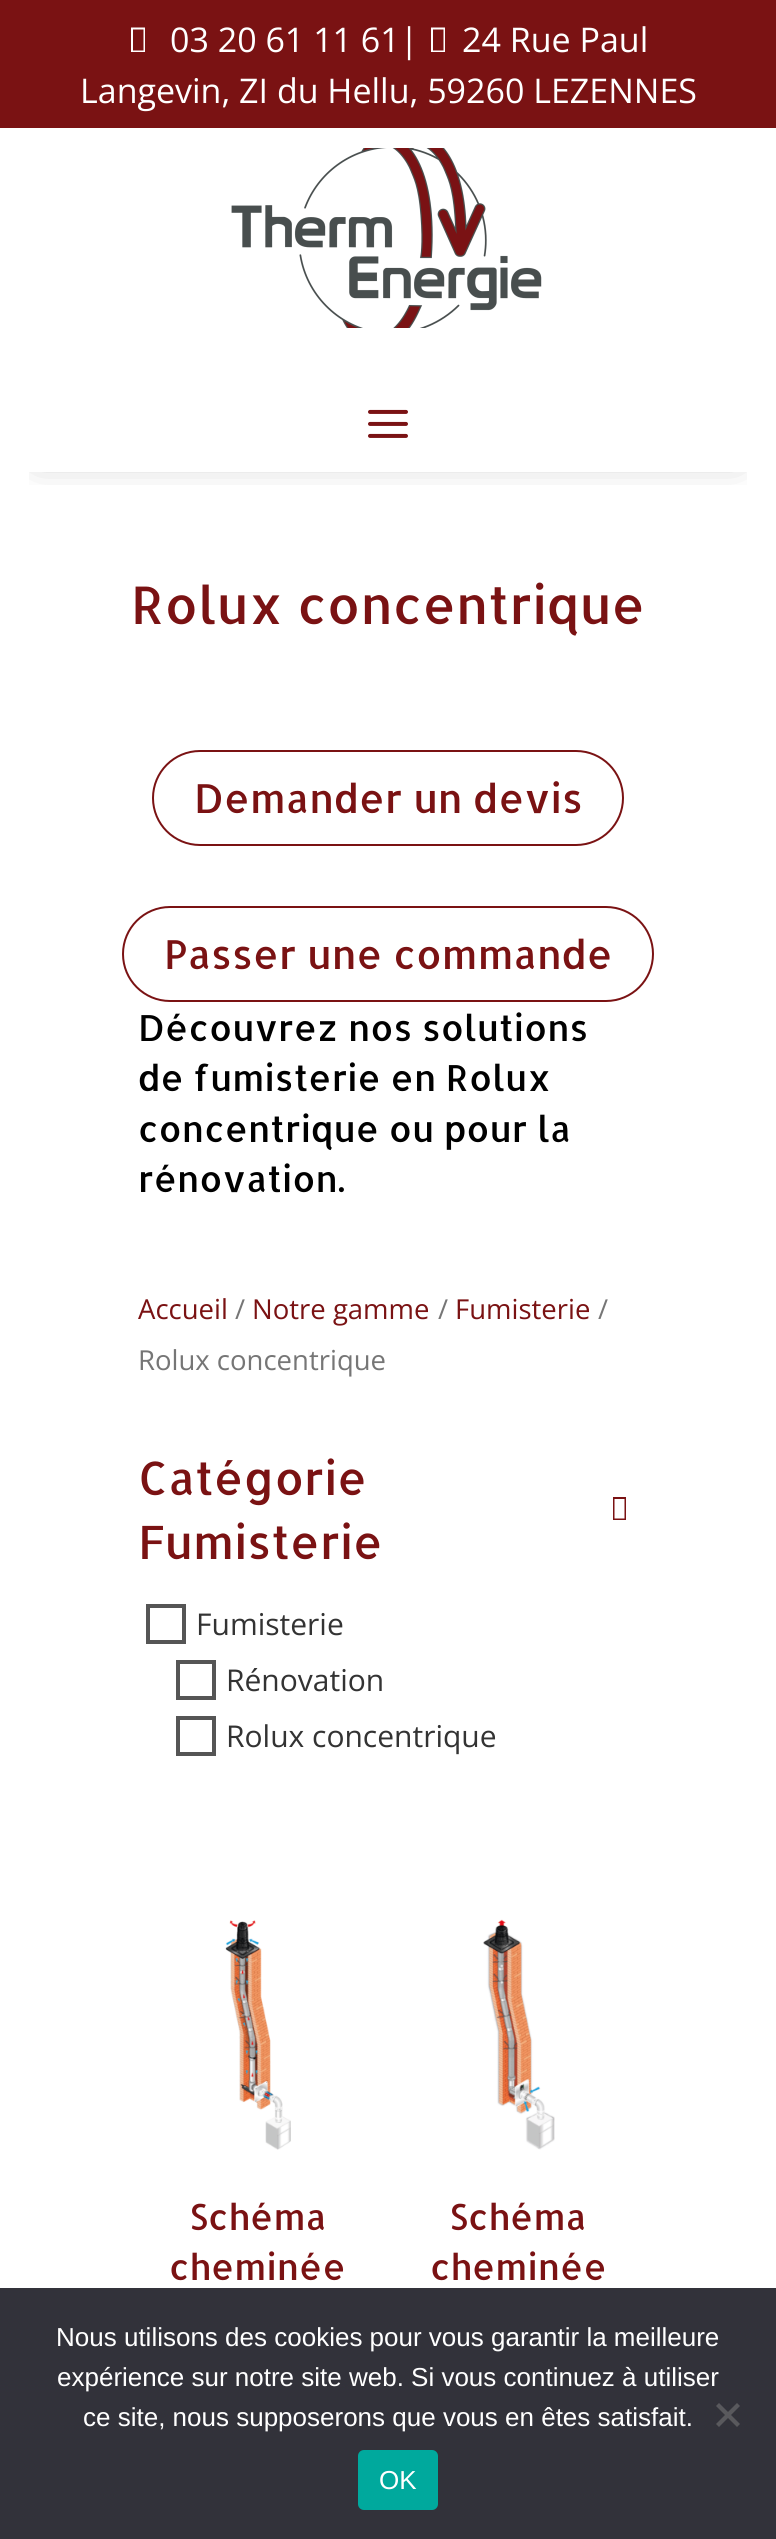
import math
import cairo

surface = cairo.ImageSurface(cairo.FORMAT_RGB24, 776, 2539)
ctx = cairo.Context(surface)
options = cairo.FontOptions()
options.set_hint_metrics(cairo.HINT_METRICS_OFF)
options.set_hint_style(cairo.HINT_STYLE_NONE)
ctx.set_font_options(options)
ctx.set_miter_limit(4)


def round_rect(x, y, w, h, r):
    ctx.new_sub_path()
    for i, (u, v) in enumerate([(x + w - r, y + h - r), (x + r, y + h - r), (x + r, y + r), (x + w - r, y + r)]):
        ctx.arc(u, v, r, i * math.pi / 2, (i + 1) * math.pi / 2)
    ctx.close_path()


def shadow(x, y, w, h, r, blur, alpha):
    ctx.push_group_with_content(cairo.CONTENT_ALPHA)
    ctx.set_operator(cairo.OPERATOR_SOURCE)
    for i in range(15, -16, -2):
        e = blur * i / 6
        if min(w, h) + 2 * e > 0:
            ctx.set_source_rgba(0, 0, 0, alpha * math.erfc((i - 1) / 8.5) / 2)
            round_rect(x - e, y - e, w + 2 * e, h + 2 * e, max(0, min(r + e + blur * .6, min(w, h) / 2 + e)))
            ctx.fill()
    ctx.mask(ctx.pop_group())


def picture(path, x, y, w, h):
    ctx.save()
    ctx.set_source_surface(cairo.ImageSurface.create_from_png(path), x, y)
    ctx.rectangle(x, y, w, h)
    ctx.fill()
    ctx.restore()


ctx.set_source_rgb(1, 1, 1)
ctx.paint()
ctx.save()
ctx.rectangle(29, 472, 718, 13)
ctx.clip()
ctx.set_source_rgb(0, 0, 0)
shadow(38, 62, 700, 396, 0, 18, 0.3)
ctx.restore()
ctx.set_source_rgb(0.478, 0.071, 0.078)
ctx.rectangle(0, 0, 776, 128)
ctx.fill()
ctx.set_source_rgb(1, 1, 1)
ctx.new_path()
ctx.move_to(131, 52)
ctx.line_to(131, 27.5)
ctx.line_to(145, 27.5)
ctx.line_to(145, 52)
ctx.close_path()
ctx.move_to(133, 50.5)
ctx.line_to(143.5, 50.5)
ctx.line_to(143.5, 29.5)
ctx.line_to(133, 29.5)
ctx.close_path()
ctx.fill()
ctx.select_font_face("Open Sans")
ctx.set_font_size(34)
ctx.move_to(170, 52)
ctx.show_text("03 20 61 11 61|")
ctx.new_path()
ctx.move_to(431, 52)
ctx.line_to(431, 27.5)
ctx.line_to(445, 27.5)
ctx.line_to(445, 52)
ctx.close_path()
ctx.move_to(433, 50.5)
ctx.line_to(443.5, 50.5)
ctx.line_to(443.5, 29.5)
ctx.line_to(433, 29.5)
ctx.close_path()
ctx.fill()
ctx.move_to(462, 52)
ctx.show_text("24 Rue Paul")
ctx.move_to(80, 103)
ctx.show_text("Langevin, ZI du Hellu, 59260 LEZENNES")
picture("img1.png", 231, 148, 311, 180)
picture("img2.png", 368, 409, 40, 29)
ctx.select_font_face("Allerta")
ctx.set_font_size(52)
ctx.set_source_rgb(0.478, 0.071, 0.078)
ctx.move_to(131, 624)
ctx.show_text("Rolux concentrique")
round_rect(153, 751, 470, 94, 47)
ctx.stroke()
ctx.set_font_size(40)
ctx.move_to(194, 813)
ctx.show_text("Demander un devis")
round_rect(123, 907, 530, 94, 47)
ctx.stroke()
ctx.move_to(164, 969)
ctx.show_text("Passer une commande")
ctx.set_font_size(36)
ctx.set_source_rgb(0, 0, 0)
ctx.move_to(138, 1041)
ctx.show_text("Découvrez nos solutions")
ctx.move_to(138, 1091)
ctx.show_text("de fumisterie en Rolux")
ctx.move_to(138, 1142)
ctx.show_text("concentrique ou pour la")
ctx.move_to(138, 1192)
ctx.show_text("rénovation.")
ctx.select_font_face("Open Sans")
ctx.set_font_size(27.5)
ctx.set_source_rgb(0.478, 0.071, 0.078)
ctx.move_to(138, 1319)
ctx.show_text("Accueil")
ctx.set_source_rgb(0.463, 0.463, 0.463)
ctx.move_to(235, 1319)
ctx.show_text("/")
ctx.set_source_rgb(0.478, 0.071, 0.078)
ctx.move_to(252, 1319)
ctx.show_text("Notre gamme")
ctx.set_source_rgb(0.463, 0.463, 0.463)
ctx.move_to(438, 1319)
ctx.show_text("/")
ctx.set_source_rgb(0.478, 0.071, 0.078)
ctx.move_to(455, 1319)
ctx.show_text("Fumisterie")
ctx.set_source_rgb(0.463, 0.463, 0.463)
ctx.move_to(598, 1319)
ctx.show_text("/")
ctx.move_to(138, 1370)
ctx.show_text("Rolux concentrique")
ctx.select_font_face("Allerta")
ctx.set_font_size(46)
ctx.set_source_rgb(0.478, 0.071, 0.078)
ctx.move_to(138, 1495)
ctx.show_text("Catégorie")
ctx.new_path()
ctx.move_to(613, 1520)
ctx.line_to(613, 1497)
ctx.line_to(626, 1497)
ctx.line_to(626, 1520)
ctx.close_path()
ctx.move_to(614.5, 1518.5)
ctx.line_to(624.5, 1518.5)
ctx.line_to(624.5, 1499)
ctx.line_to(614.5, 1499)
ctx.close_path()
ctx.fill()
ctx.move_to(138, 1559)
ctx.show_text("Fumisterie")
ctx.rectangle(148, 1606, 36, 36)
ctx.set_source_rgb(0.333, 0.333, 0.333)
ctx.set_line_width(4)
ctx.stroke()
ctx.select_font_face("Open Sans")
ctx.set_font_size(30)
ctx.set_source_rgb(0.2, 0.2, 0.2)
ctx.move_to(196, 1635)
ctx.show_text("Fumisterie")
ctx.rectangle(178, 1662, 36, 36)
ctx.set_source_rgb(0.333, 0.333, 0.333)
ctx.stroke()
ctx.set_source_rgb(0.2, 0.2, 0.2)
ctx.move_to(226, 1691)
ctx.show_text("Rénovation")
ctx.rectangle(178, 1718, 36, 36)
ctx.set_source_rgb(0.333, 0.333, 0.333)
ctx.stroke()
ctx.set_source_rgb(0.2, 0.2, 0.2)
ctx.move_to(226, 1747)
ctx.show_text("Rolux concentrique")
picture("img3.png", 225, 1920, 66, 230)
ctx.select_font_face("Allerta")
ctx.set_font_size(36)
ctx.set_source_rgb(0.478, 0.071, 0.078)
ctx.move_to(189, 2230)
ctx.show_text("Schéma")
ctx.move_to(169, 2280)
ctx.show_text("cheminée")
picture("img4.png", 483, 1919, 72, 231)
ctx.move_to(449, 2230)
ctx.show_text("Schéma")
ctx.move_to(430, 2280)
ctx.show_text("cheminée")
ctx.set_source_rgb(0.196, 0.196, 0.227)
ctx.rectangle(0, 2288, 776, 251)
ctx.fill()
ctx.select_font_face("Liberation Sans")
ctx.set_font_size(26)
ctx.set_source_rgb(1, 1, 1)
ctx.move_to(56, 2346)
ctx.show_text("Nous utilisons des cookies pour vous garantir la meilleure")
ctx.move_to(57, 2386)
ctx.show_text("expérience sur notre site web. Si vous continuez à utiliser")
ctx.move_to(83, 2426)
ctx.show_text("ce site, nous supposerons que vous en êtes satisfait.")
ctx.set_source_rgb(0.349, 0.349, 0.365)
ctx.new_path()
ctx.move_to(737, 2403)
ctx.line_to(740, 2406)
ctx.line_to(719, 2427)
ctx.line_to(716, 2424)
ctx.close_path()
ctx.fill()
ctx.new_path()
ctx.move_to(716, 2406)
ctx.line_to(719, 2403)
ctx.line_to(740, 2424)
ctx.line_to(737, 2427)
ctx.close_path()
ctx.fill()
ctx.set_source_rgb(0, 0.663, 0.616)
round_rect(358, 2450, 80, 60, 6)
ctx.fill()
ctx.set_source_rgb(1, 1, 1)
ctx.move_to(379, 2489)
ctx.show_text("OK")
surface.write_to_png("page.png")
